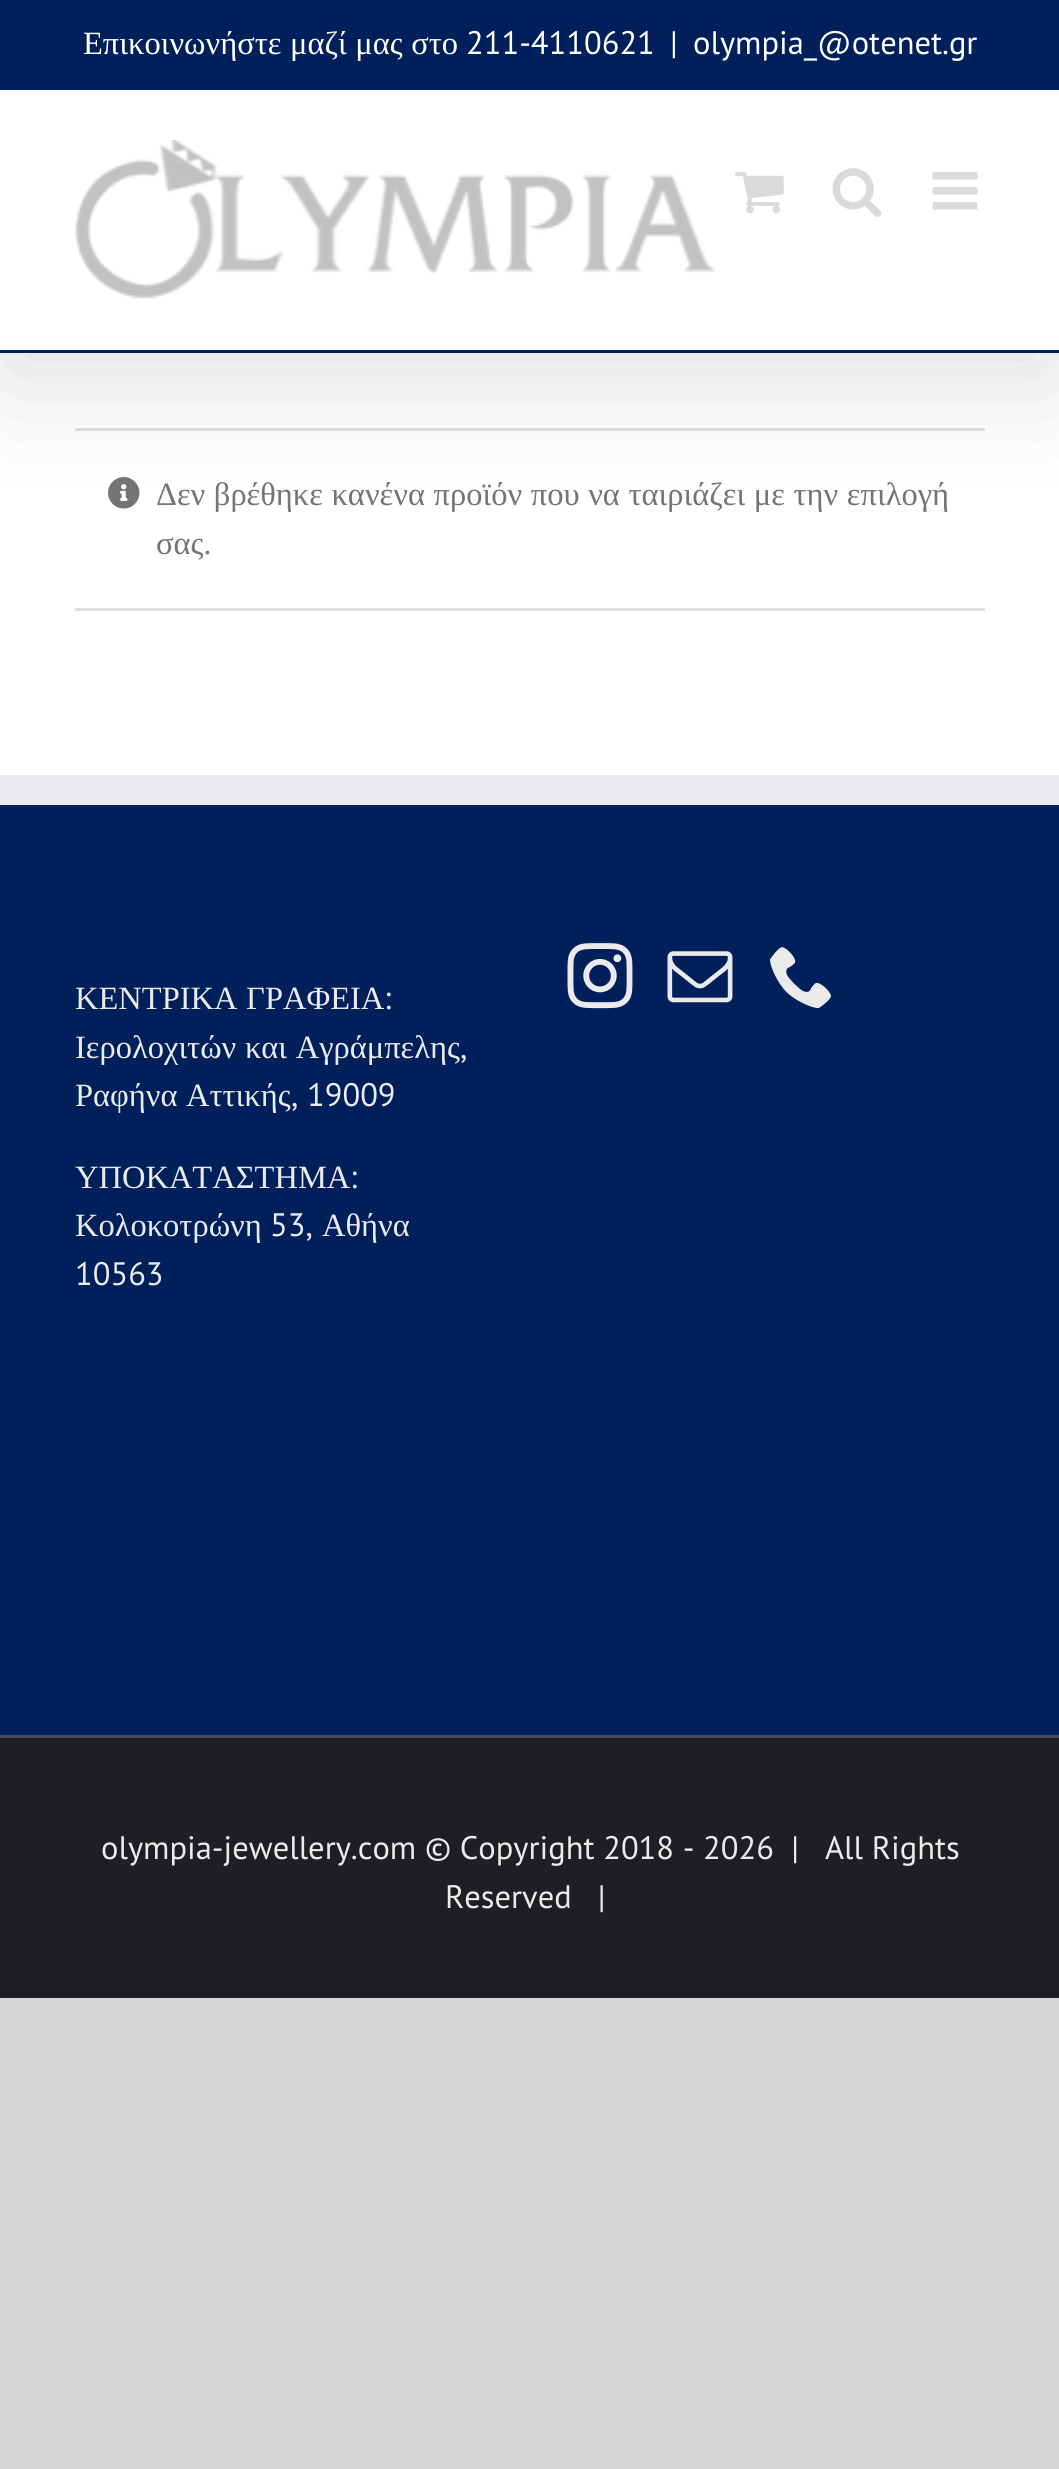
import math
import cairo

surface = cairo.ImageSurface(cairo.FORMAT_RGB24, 1059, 2469)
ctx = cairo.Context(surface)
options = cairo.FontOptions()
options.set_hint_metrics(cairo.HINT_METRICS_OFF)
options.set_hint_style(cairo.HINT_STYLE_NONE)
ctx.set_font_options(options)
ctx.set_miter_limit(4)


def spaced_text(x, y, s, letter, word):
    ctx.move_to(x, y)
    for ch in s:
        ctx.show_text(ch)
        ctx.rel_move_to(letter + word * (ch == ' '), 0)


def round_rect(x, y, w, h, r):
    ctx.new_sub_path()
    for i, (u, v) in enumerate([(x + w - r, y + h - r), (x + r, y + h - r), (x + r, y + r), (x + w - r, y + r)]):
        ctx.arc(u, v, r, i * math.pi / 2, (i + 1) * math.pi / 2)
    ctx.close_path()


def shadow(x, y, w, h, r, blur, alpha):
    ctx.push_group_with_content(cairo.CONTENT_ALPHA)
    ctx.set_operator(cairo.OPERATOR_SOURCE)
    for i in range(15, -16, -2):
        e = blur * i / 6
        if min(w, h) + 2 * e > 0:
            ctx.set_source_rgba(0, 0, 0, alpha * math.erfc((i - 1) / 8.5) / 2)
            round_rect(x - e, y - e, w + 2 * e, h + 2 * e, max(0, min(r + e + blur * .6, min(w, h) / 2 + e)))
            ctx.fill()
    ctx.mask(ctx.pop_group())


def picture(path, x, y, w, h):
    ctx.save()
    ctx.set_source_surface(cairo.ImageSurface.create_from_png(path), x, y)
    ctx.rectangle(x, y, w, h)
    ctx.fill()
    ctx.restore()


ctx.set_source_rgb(0.843, 0.839, 0.839)
ctx.paint()
ctx.set_source_rgb(1, 1, 1)
ctx.rectangle(0, 353, 1059, 422)
ctx.fill()
ctx.set_source_rgb(0.878, 0.871, 0.871)
ctx.rectangle(75, 428, 910, 3)
ctx.fill()
picture("img5.png", 108, 477, 32, 32)
ctx.set_source_rgb(0, 0, 0)
shadow(5, 30, 1050, 343, 0, 62.5, 0.14)
ctx.set_source_rgb(0, 0.125, 0.357)
ctx.rectangle(0, 0, 1059, 90)
ctx.fill()
ctx.select_font_face("Liberation Serif")
ctx.set_font_size(32.5)
ctx.set_source_rgb(1, 1, 1)
spaced_text(83, 54, "Επικοινωνήστε μαζί μας στο", 0, 0.5)
ctx.select_font_face("PT Sans")
ctx.move_to(466, 54)
ctx.show_text("211-4110621")
ctx.move_to(670, 54)
ctx.show_text("|")
ctx.move_to(693, 54)
ctx.show_text("olympia_@otenet.gr")
ctx.rectangle(0, 90, 1059, 260)
ctx.fill()
ctx.set_source_rgb(0, 0.125, 0.357)
ctx.rectangle(0, 350, 1059, 3)
ctx.fill()
picture("img1.png", 75, 140, 641, 159)
picture("img2.png", 735, 172, 49, 42)
picture("img3.png", 832, 168, 50, 49)
picture("img4.png", 932, 172, 46, 38)
ctx.set_source_rgb(0.878, 0.871, 0.871)
ctx.rectangle(75, 608, 910, 3)
ctx.fill()
ctx.select_font_face("Liberation Serif")
ctx.set_source_rgb(0.455, 0.455, 0.455)
spaced_text(156, 505, "Δεν βρέθηκε κανένα προϊόν που να ταιριάζει με την επιλογή", 0, 0.5)
ctx.move_to(156, 554)
ctx.show_text("σας")
ctx.select_font_face("PT Sans")
ctx.move_to(204, 554)
ctx.show_text(".")
ctx.set_source_rgb(0, 0.125, 0.357)
ctx.rectangle(0, 805, 1059, 930)
ctx.fill()
ctx.set_source_rgb(0.914, 0.918, 0.933)
ctx.rectangle(0, 775, 1059, 30)
ctx.fill()
picture("img6.png", 567, 943, 66, 66)
picture("img7.png", 667, 951, 66, 52)
picture("img8.png", 770, 947, 61, 62)
ctx.select_font_face("Liberation Serif")
ctx.set_source_rgb(0.918, 0.918, 0.918)
spaced_text(75, 1009, "ΚΕΝΤΡΙΚΑ ΓΡΑΦΕΙΑ", 0, 0.5)
ctx.select_font_face("PT Sans")
ctx.move_to(384, 1009)
ctx.show_text(":")
ctx.select_font_face("Liberation Serif")
spaced_text(75, 1058, "Ιερολοχιτών και Αγράμπελης", 0, 0.5)
ctx.select_font_face("PT Sans")
ctx.move_to(460, 1058)
ctx.show_text(",")
ctx.select_font_face("Liberation Serif")
ctx.move_to(75, 1106)
ctx.show_text("Ραφήνα")
ctx.move_to(186, 1106)
ctx.show_text("Αττικής")
ctx.select_font_face("PT Sans")
ctx.move_to(291, 1106)
ctx.show_text(", 19009")
ctx.select_font_face("Liberation Serif")
ctx.move_to(75, 1188)
ctx.show_text("ΥΠΟΚΑΤΑΣΤΗΜΑ")
ctx.select_font_face("PT Sans")
ctx.move_to(350, 1188)
ctx.show_text(":")
ctx.select_font_face("Liberation Serif")
ctx.move_to(75, 1236)
ctx.show_text("Κολοκοτρώνη")
ctx.select_font_face("PT Sans")
ctx.move_to(270, 1236)
ctx.show_text("53,")
ctx.select_font_face("Liberation Serif")
ctx.move_to(322, 1236)
ctx.show_text("Αθήνα")
ctx.select_font_face("PT Sans")
ctx.move_to(75, 1285)
ctx.show_text("10563")
ctx.set_source_rgb(0.114, 0.122, 0.133)
ctx.rectangle(0, 1738, 1059, 260)
ctx.fill()
ctx.set_source_rgb(0.294, 0.298, 0.302)
ctx.rectangle(0, 1735, 1059, 3)
ctx.fill()
ctx.set_source_rgb(0.918, 0.918, 0.918)
ctx.move_to(101, 1859)
ctx.show_text("olympia-jewellery.com © Copyright 2018 - 2026  |   All Rights")
ctx.move_to(445, 1908)
ctx.show_text("Reserved   |")
surface.write_to_png("page.png")
